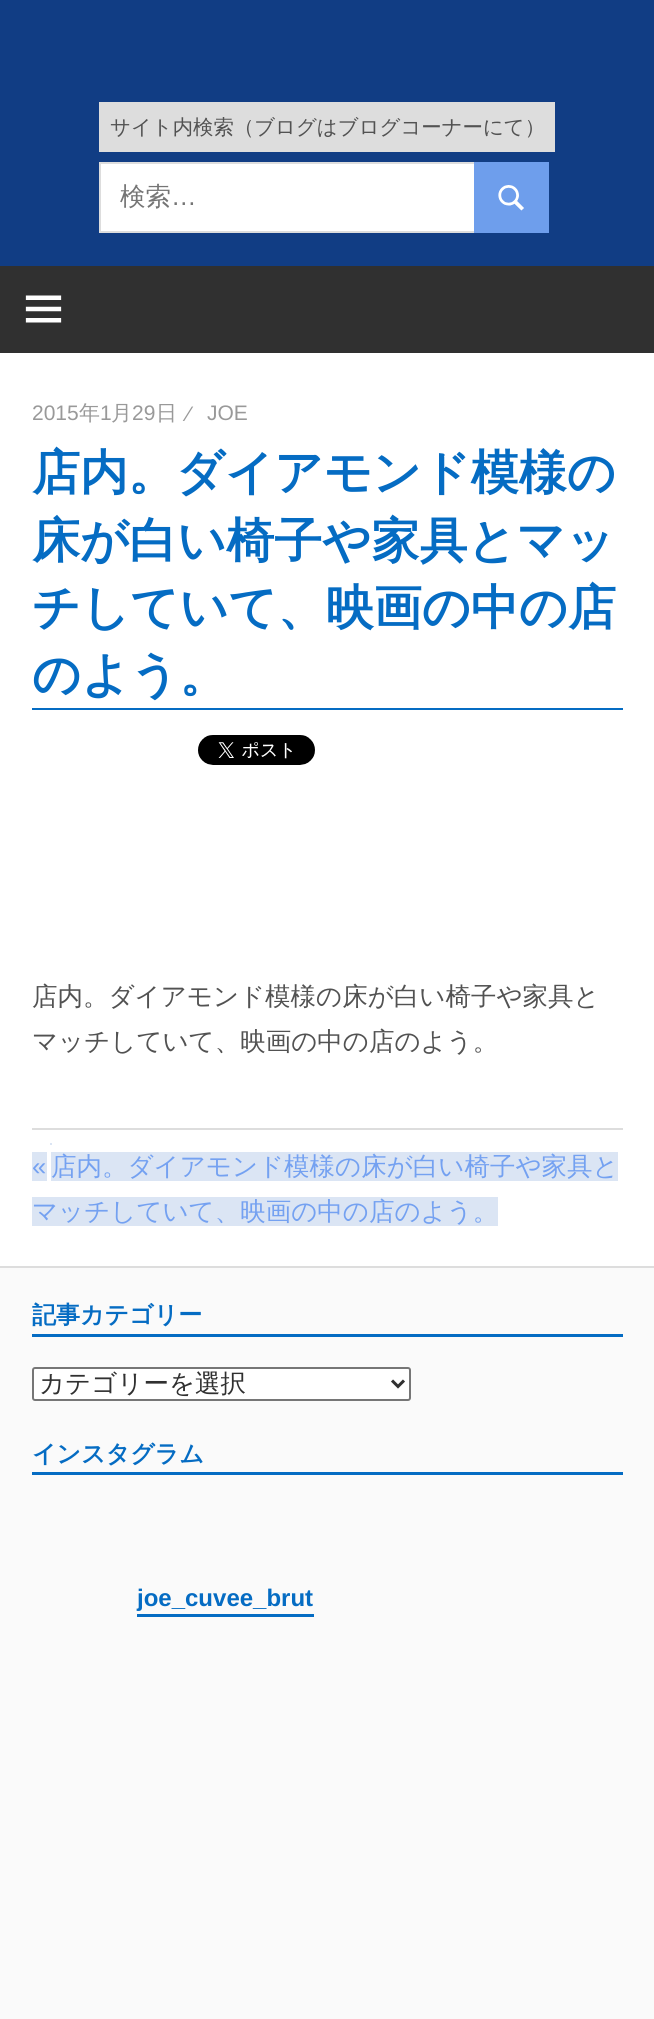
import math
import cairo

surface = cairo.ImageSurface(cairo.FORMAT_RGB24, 654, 2019)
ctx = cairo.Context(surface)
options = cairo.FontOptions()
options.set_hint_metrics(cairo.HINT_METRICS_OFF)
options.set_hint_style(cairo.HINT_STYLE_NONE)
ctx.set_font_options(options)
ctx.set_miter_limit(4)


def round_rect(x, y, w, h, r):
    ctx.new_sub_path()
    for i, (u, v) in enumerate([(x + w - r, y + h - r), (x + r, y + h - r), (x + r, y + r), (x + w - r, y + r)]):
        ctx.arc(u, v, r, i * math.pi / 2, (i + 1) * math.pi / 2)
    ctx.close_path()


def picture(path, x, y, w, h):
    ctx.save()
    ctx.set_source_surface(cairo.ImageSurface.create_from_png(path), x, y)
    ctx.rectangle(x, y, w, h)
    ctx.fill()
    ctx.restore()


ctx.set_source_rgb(1, 1, 1)
ctx.paint()
ctx.set_source_rgb(0.067, 0.239, 0.518)
ctx.rectangle(0, 0, 654, 266)
ctx.fill()
ctx.set_source_rgb(0.867, 0.867, 0.867)
ctx.rectangle(99, 102, 456, 50)
ctx.fill()
ctx.select_font_face("WenQuanYi Zen Hei Medium")
ctx.set_font_size(20.4)
ctx.set_source_rgb(0.322, 0.322, 0.322)
ctx.move_to(110, 134)
ctx.show_text("サイト内検索（ブログはブログコーナーにて）")
ctx.set_source_rgb(1, 1, 1)
ctx.rectangle(100, 163, 375, 69)
ctx.fill_preserve()
ctx.set_source_rgb(0.867, 0.867, 0.867)
ctx.stroke()
ctx.set_font_size(25.5)
ctx.set_source_rgb(0.459, 0.459, 0.459)
ctx.move_to(120, 205)
ctx.show_text("検索")
ctx.select_font_face("Liberation Sans")
ctx.move_to(171, 205)
ctx.show_text("…")
ctx.set_source_rgb(0.431, 0.62, 0.925)
ctx.rectangle(474, 162, 75, 71)
ctx.fill()
picture("img1.png", 498, 185, 26, 26)
ctx.set_source_rgb(0.188, 0.188, 0.188)
ctx.rectangle(0, 266, 654, 87)
ctx.fill()
picture("img2.png", 25, 295, 37, 28)
ctx.set_font_size(21)
ctx.set_source_rgb(0.6, 0.6, 0.6)
ctx.move_to(32, 420)
ctx.show_text("2015")
ctx.select_font_face("WenQuanYi Zen Hei Medium")
ctx.move_to(79, 420)
ctx.show_text("年")
ctx.select_font_face("Liberation Sans")
ctx.move_to(100, 420)
ctx.show_text("1")
ctx.select_font_face("WenQuanYi Zen Hei Medium")
ctx.move_to(111, 420)
ctx.show_text("月")
ctx.select_font_face("Liberation Sans")
ctx.move_to(132, 420)
ctx.show_text("29")
ctx.select_font_face("WenQuanYi Zen Hei Medium")
ctx.move_to(156, 420)
ctx.show_text("日")
ctx.select_font_face("Liberation Sans")
ctx.move_to(187, 421)
ctx.show_text("⁄")
ctx.move_to(207, 420)
ctx.show_text("JOE")
ctx.set_source_rgb(0.02, 0.424, 0.765)
ctx.rectangle(32, 708, 591, 2)
ctx.fill()
ctx.select_font_face("WenQuanYi Zen Hei", cairo.FONT_SLANT_NORMAL, cairo.FONT_WEIGHT_BOLD)
ctx.set_font_size(48)
ctx.move_to(32, 489)
ctx.show_text("店内。ダイアモンド模様の")
ctx.move_to(32, 557)
ctx.show_text("床が白い椅子や家具とマッ")
ctx.move_to(32, 624)
ctx.show_text("チしていて、映画の中の店")
ctx.move_to(32, 691)
ctx.show_text("のよう。")
picture("img3.png", 198, 735, 117, 30)
ctx.select_font_face("WenQuanYi Zen Hei Medium")
ctx.set_font_size(25.5)
ctx.set_source_rgb(0.322, 0.322, 0.322)
ctx.move_to(32, 1005)
ctx.show_text("店内。ダイアモンド模様の床が白い椅子や家具と")
ctx.move_to(32, 1050)
ctx.show_text("マッチしていて、映画の中の店のよう。")
ctx.set_source_rgb(0.867, 0.867, 0.867)
ctx.rectangle(32, 1128, 591, 2)
ctx.fill()
ctx.set_source_rgb(0.859, 0.898, 0.957)
ctx.rectangle(32, 1152, 15, 29)
ctx.fill()
ctx.select_font_face("Liberation Sans")
ctx.set_source_rgb(0.455, 0.631, 0.945)
ctx.move_to(32, 1175)
ctx.show_text("«")
ctx.set_source_rgb(0.859, 0.898, 0.957)
ctx.rectangle(51, 1152, 567, 29)
ctx.fill()
ctx.select_font_face("WenQuanYi Zen Hei Medium")
ctx.set_source_rgb(0.455, 0.631, 0.945)
ctx.move_to(51, 1175)
ctx.show_text("店内。ダイアモンド模様の床が白い椅子や家具と")
ctx.set_source_rgb(0.859, 0.898, 0.957)
ctx.rectangle(50, 1143, 2, 2)
ctx.fill()
ctx.rectangle(32, 1197, 466, 29)
ctx.fill()
ctx.set_source_rgb(0.455, 0.631, 0.945)
ctx.move_to(32, 1220)
ctx.show_text("マッチしていて、映画の中の店のよう。")
ctx.set_source_rgb(0.98, 0.98, 0.98)
ctx.rectangle(0, 1268, 654, 751)
ctx.fill()
ctx.set_source_rgb(0.867, 0.867, 0.867)
ctx.rectangle(0, 1266, 654, 2)
ctx.fill()
ctx.set_source_rgb(0.02, 0.424, 0.765)
ctx.rectangle(32, 1334, 591, 3)
ctx.fill()
ctx.select_font_face("WenQuanYi Zen Hei", cairo.FONT_SLANT_NORMAL, cairo.FONT_WEIGHT_BOLD)
ctx.set_font_size(24)
ctx.move_to(32, 1323)
ctx.show_text("記事カテゴリー")
ctx.set_source_rgb(1, 1, 1)
round_rect(33, 1368, 377, 32, 2)
ctx.fill_preserve()
ctx.set_source_rgb(0.463, 0.463, 0.463)
ctx.stroke()
ctx.new_path()
ctx.move_to(392, 1380.5)
ctx.line_to(398, 1386.5)
ctx.line_to(404, 1380.5)
ctx.set_source_rgb(0.188, 0.188, 0.188)
ctx.set_line_width(3)
ctx.stroke()
ctx.select_font_face("WenQuanYi Zen Hei Medium")
ctx.set_font_size(25.5)
ctx.move_to(39, 1392)
ctx.show_text("カテゴリーを選択")
ctx.set_source_rgb(0.02, 0.424, 0.765)
ctx.rectangle(32, 1472, 591, 3)
ctx.fill()
ctx.select_font_face("WenQuanYi Zen Hei", cairo.FONT_SLANT_NORMAL, cairo.FONT_WEIGHT_BOLD)
ctx.set_font_size(24)
ctx.move_to(32, 1462)
ctx.show_text("インスタグラム")
ctx.rectangle(137, 1614, 177, 3)
ctx.fill()
ctx.select_font_face("Liberation Sans", cairo.FONT_SLANT_NORMAL, cairo.FONT_WEIGHT_BOLD)
ctx.move_to(137, 1606)
ctx.show_text("joe_cuvee_brut")
surface.write_to_png("page.png")
